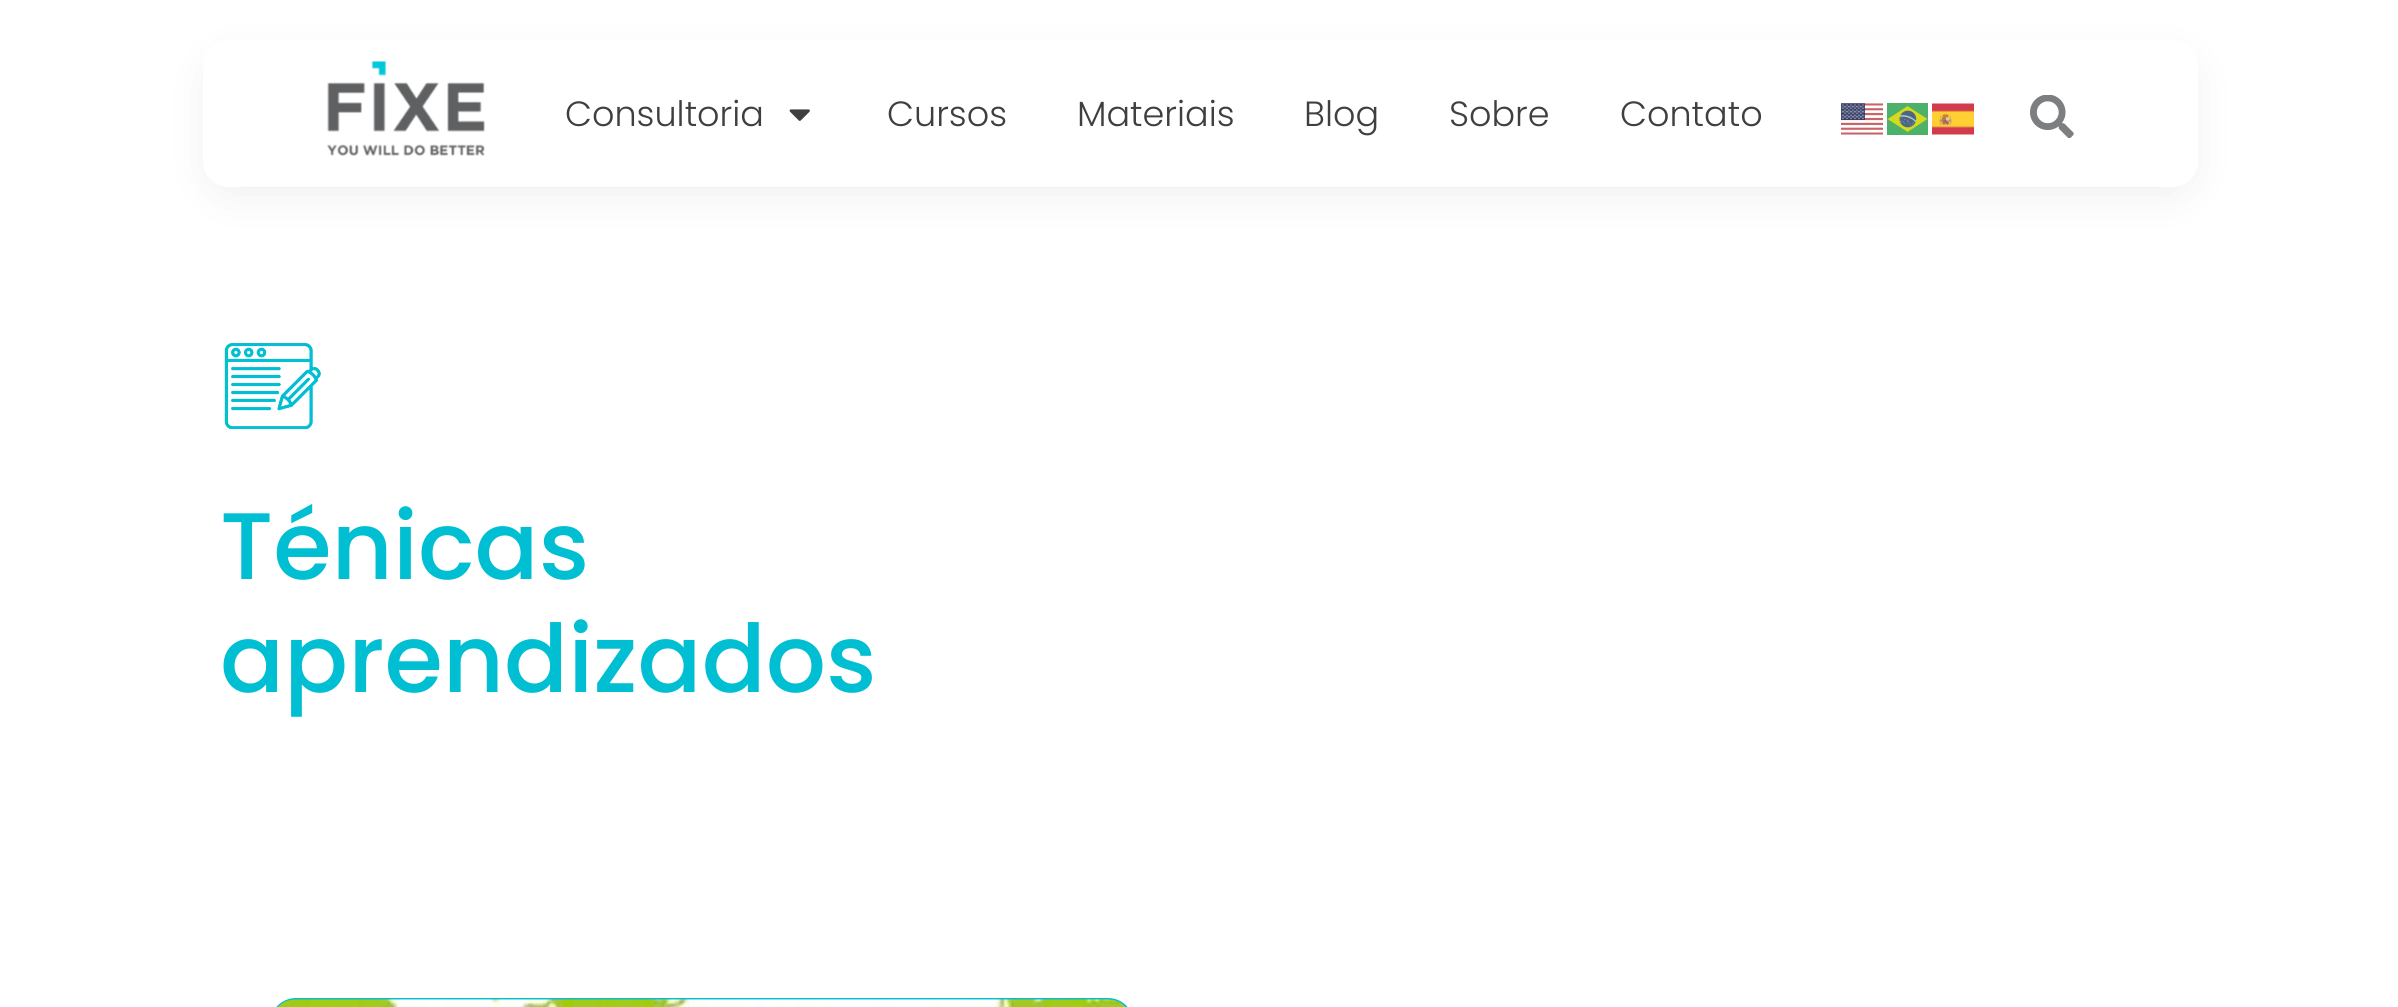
import math
import cairo

surface = cairo.ImageSurface(cairo.FORMAT_RGB24, 2398, 1007)
ctx = cairo.Context(surface)
options = cairo.FontOptions()
options.set_hint_metrics(cairo.HINT_METRICS_OFF)
options.set_hint_style(cairo.HINT_STYLE_NONE)
ctx.set_font_options(options)
ctx.set_miter_limit(4)


def round_rect(x, y, w, h, r):
    ctx.new_sub_path()
    for i, (u, v) in enumerate([(x + w - r, y + h - r), (x + r, y + h - r), (x + r, y + r), (x + w - r, y + r)]):
        ctx.arc(u, v, r, i * math.pi / 2, (i + 1) * math.pi / 2)
    ctx.close_path()


def shadow(x, y, w, h, r, blur, alpha):
    ctx.push_group_with_content(cairo.CONTENT_ALPHA)
    ctx.set_operator(cairo.OPERATOR_SOURCE)
    for i in range(15, -16, -2):
        e = blur * i / 6
        if min(w, h) + 2 * e > 0:
            ctx.set_source_rgba(0, 0, 0, alpha * math.erfc((i - 1) / 8.5) / 2)
            round_rect(x - e, y - e, w + 2 * e, h + 2 * e, max(0, min(r + e + blur * .6, min(w, h) / 2 + e)))
            ctx.fill()
    ctx.mask(ctx.pop_group())


def picture(path, x, y, w, h):
    ctx.save()
    ctx.set_source_surface(cairo.ImageSurface.create_from_png(path), x, y)
    ctx.rectangle(x, y, w, h)
    ctx.fill()
    ctx.restore()


ctx.set_source_rgb(1, 1, 1)
ctx.paint()
ctx.save()
ctx.set_fill_rule(cairo.FILL_RULE_EVEN_ODD)
ctx.new_path()
ctx.move_to(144, 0)
ctx.line_to(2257, 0)
ctx.line_to(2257, 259)
ctx.line_to(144, 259)
ctx.close_path()
ctx.move_to(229, 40)
ctx.line_to(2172, 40)
ctx.curve_to(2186.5, 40, 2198, 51.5, 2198, 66)
ctx.line_to(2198, 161)
ctx.curve_to(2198, 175.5, 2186.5, 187, 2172, 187)
ctx.line_to(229, 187)
ctx.curve_to(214.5, 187, 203, 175.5, 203, 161)
ctx.line_to(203, 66)
ctx.curve_to(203, 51.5, 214.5, 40, 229, 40)
ctx.close_path()
ctx.clip()
ctx.set_source_rgb(0, 0, 0)
shadow(219, 68, 1963, 116, 11, 24.5, 0.1)
ctx.restore()
picture("img1.png", 327, 60, 158, 96)
ctx.select_font_face("Poppins Light")
ctx.set_font_size(35)
ctx.set_source_rgb(0.247, 0.247, 0.247)
ctx.move_to(565, 126)
ctx.show_text("Consultoria")
picture("img2.png", 789, 109, 21, 12)
ctx.move_to(887, 126)
ctx.show_text("Cursos")
ctx.move_to(1077, 126)
ctx.show_text("Materiais")
ctx.move_to(1304, 126)
ctx.show_text("Blog")
ctx.move_to(1449, 126)
ctx.show_text("Sobre")
ctx.move_to(1620, 126)
ctx.show_text("Contato")
picture("img3.png", 1841, 103, 42, 32)
picture("img4.png", 1887, 103, 41, 32)
picture("img5.png", 1932, 103, 42, 32)
picture("img6.png", 2030, 95, 44, 43)
picture("img7.png", 224, 343, 97, 86)
ctx.select_font_face("Poppins Medium")
ctx.set_font_size(94.5)
ctx.set_source_rgb(0, 0.749, 0.827)
ctx.move_to(220, 579)
ctx.show_text("Ténicas")
ctx.move_to(220, 692)
ctx.show_text("aprendizados")
round_rect(271, 999, 862, 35, 25)
ctx.stroke()
picture("img8.png", 278, 999, 848, 8)
surface.write_to_png("page.png")
